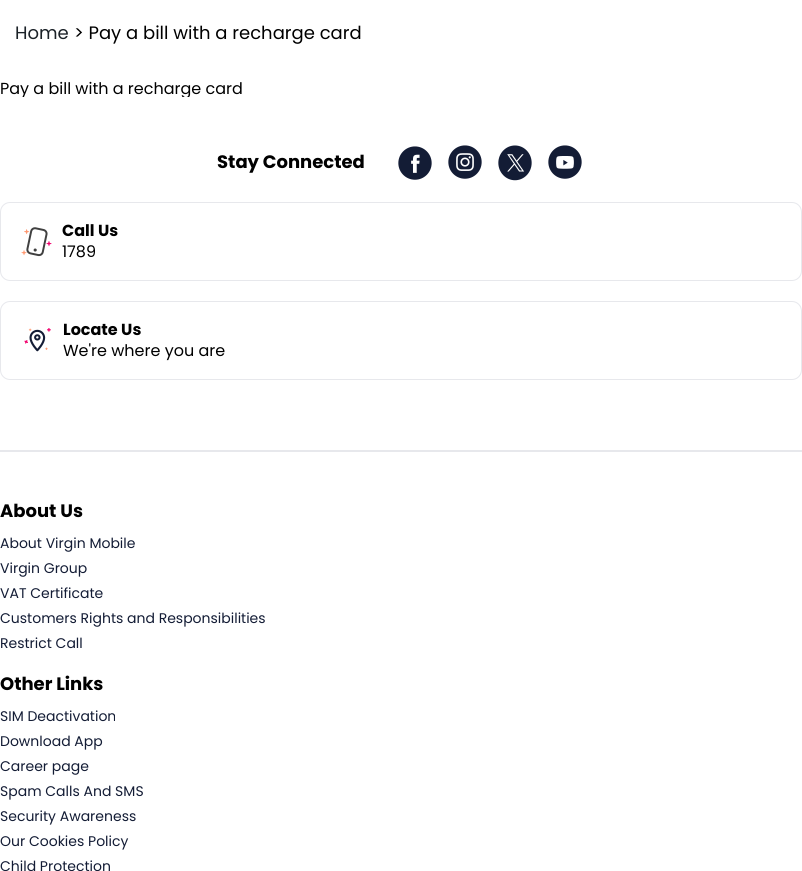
import math
import cairo

surface = cairo.ImageSurface(cairo.FORMAT_RGB24, 802, 871)
ctx = cairo.Context(surface)
options = cairo.FontOptions()
options.set_hint_metrics(cairo.HINT_METRICS_OFF)
options.set_hint_style(cairo.HINT_STYLE_NONE)
ctx.set_font_options(options)
ctx.set_miter_limit(4)


def round_rect(x, y, w, h, r):
    ctx.new_sub_path()
    for i, (u, v) in enumerate([(x + w - r, y + h - r), (x + r, y + h - r), (x + r, y + r), (x + w - r, y + r)]):
        ctx.arc(u, v, r, i * math.pi / 2, (i + 1) * math.pi / 2)
    ctx.close_path()


def picture(path, x, y, w, h):
    ctx.save()
    ctx.set_source_surface(cairo.ImageSurface.create_from_png(path), x, y)
    ctx.rectangle(x, y, w, h)
    ctx.fill()
    ctx.restore()


ctx.set_source_rgb(1, 1, 1)
ctx.paint()
ctx.select_font_face("Poppins")
ctx.set_font_size(18)
ctx.set_source_rgb(0.106, 0.133, 0.157)
ctx.move_to(15, 39)
ctx.show_text("Home")
ctx.set_source_rgb(0, 0, 0)
ctx.move_to(74, 39)
ctx.show_text("> Pay a bill with a recharge card")
ctx.set_font_size(16)
ctx.move_to(0, 94)
ctx.show_text("Pay a bill with a recharge card")
ctx.set_source_rgb(1, 1, 1)
ctx.rectangle(22, 97, 167, 2)
ctx.fill()
ctx.select_font_face("Poppins", cairo.FONT_SLANT_NORMAL, cairo.FONT_WEIGHT_BOLD)
ctx.set_font_size(18)
ctx.set_source_rgb(0, 0, 0)
ctx.move_to(217, 168)
ctx.show_text("Stay Connected")
picture("img1.png", 398, 146, 34, 34)
picture("img2.png", 448, 145, 34, 34)
picture("img3.png", 498, 145, 34, 36)
picture("img4.png", 548, 145, 34, 34)
round_rect(0.5, 202.5, 801, 78, 9.5)
ctx.set_source_rgb(0.906, 0.91, 0.922)
ctx.set_line_width(1)
ctx.stroke()
picture("img5.png", 21, 227, 31, 30)
ctx.set_font_size(16)
ctx.set_source_rgb(0, 0, 0)
ctx.move_to(62, 236)
ctx.show_text("Call Us")
ctx.select_font_face("Poppins")
ctx.move_to(62, 257)
ctx.show_text("1789")
round_rect(0.5, 301.5, 801, 78, 9.5)
ctx.set_source_rgb(0.906, 0.91, 0.922)
ctx.stroke()
picture("img6.png", 24, 328, 27, 24)
ctx.select_font_face("Poppins", cairo.FONT_SLANT_NORMAL, cairo.FONT_WEIGHT_BOLD)
ctx.set_source_rgb(0, 0, 0)
ctx.move_to(63, 335)
ctx.show_text("Locate Us")
ctx.select_font_face("Poppins")
ctx.move_to(63, 356)
ctx.show_text("We're where you are")
ctx.set_source_rgb(0.906, 0.91, 0.922)
ctx.rectangle(0, 450, 802, 2)
ctx.fill()
ctx.select_font_face("Poppins", cairo.FONT_SLANT_NORMAL, cairo.FONT_WEIGHT_BOLD)
ctx.set_font_size(18)
ctx.set_source_rgb(0, 0, 0)
ctx.move_to(0, 517)
ctx.show_text("About Us")
ctx.select_font_face("Poppins")
ctx.set_font_size(14)
ctx.set_source_rgb(0.075, 0.11, 0.208)
ctx.move_to(0, 548)
ctx.show_text("About Virgin Mobile")
ctx.move_to(0, 573)
ctx.show_text("Virgin Group")
ctx.move_to(0, 598)
ctx.show_text("VAT Certificate")
ctx.move_to(0, 623)
ctx.show_text("Customers Rights and Responsibilities")
ctx.move_to(0, 648)
ctx.show_text("Restrict Call")
ctx.select_font_face("Poppins", cairo.FONT_SLANT_NORMAL, cairo.FONT_WEIGHT_BOLD)
ctx.set_font_size(18)
ctx.set_source_rgb(0, 0, 0)
ctx.move_to(0, 690)
ctx.show_text("Other Links")
ctx.select_font_face("Poppins")
ctx.set_font_size(14)
ctx.set_source_rgb(0.075, 0.11, 0.208)
ctx.move_to(0, 721)
ctx.show_text("SIM Deactivation")
ctx.move_to(0, 746)
ctx.show_text("Download App")
ctx.move_to(0, 771)
ctx.show_text("Career page")
ctx.move_to(0, 796)
ctx.show_text("Spam Calls And SMS")
ctx.move_to(0, 821)
ctx.show_text("Security Awareness")
ctx.move_to(0, 846)
ctx.show_text("Our Cookies Policy")
ctx.move_to(0, 871)
ctx.show_text("Child Protection")
surface.write_to_png("page.png")
